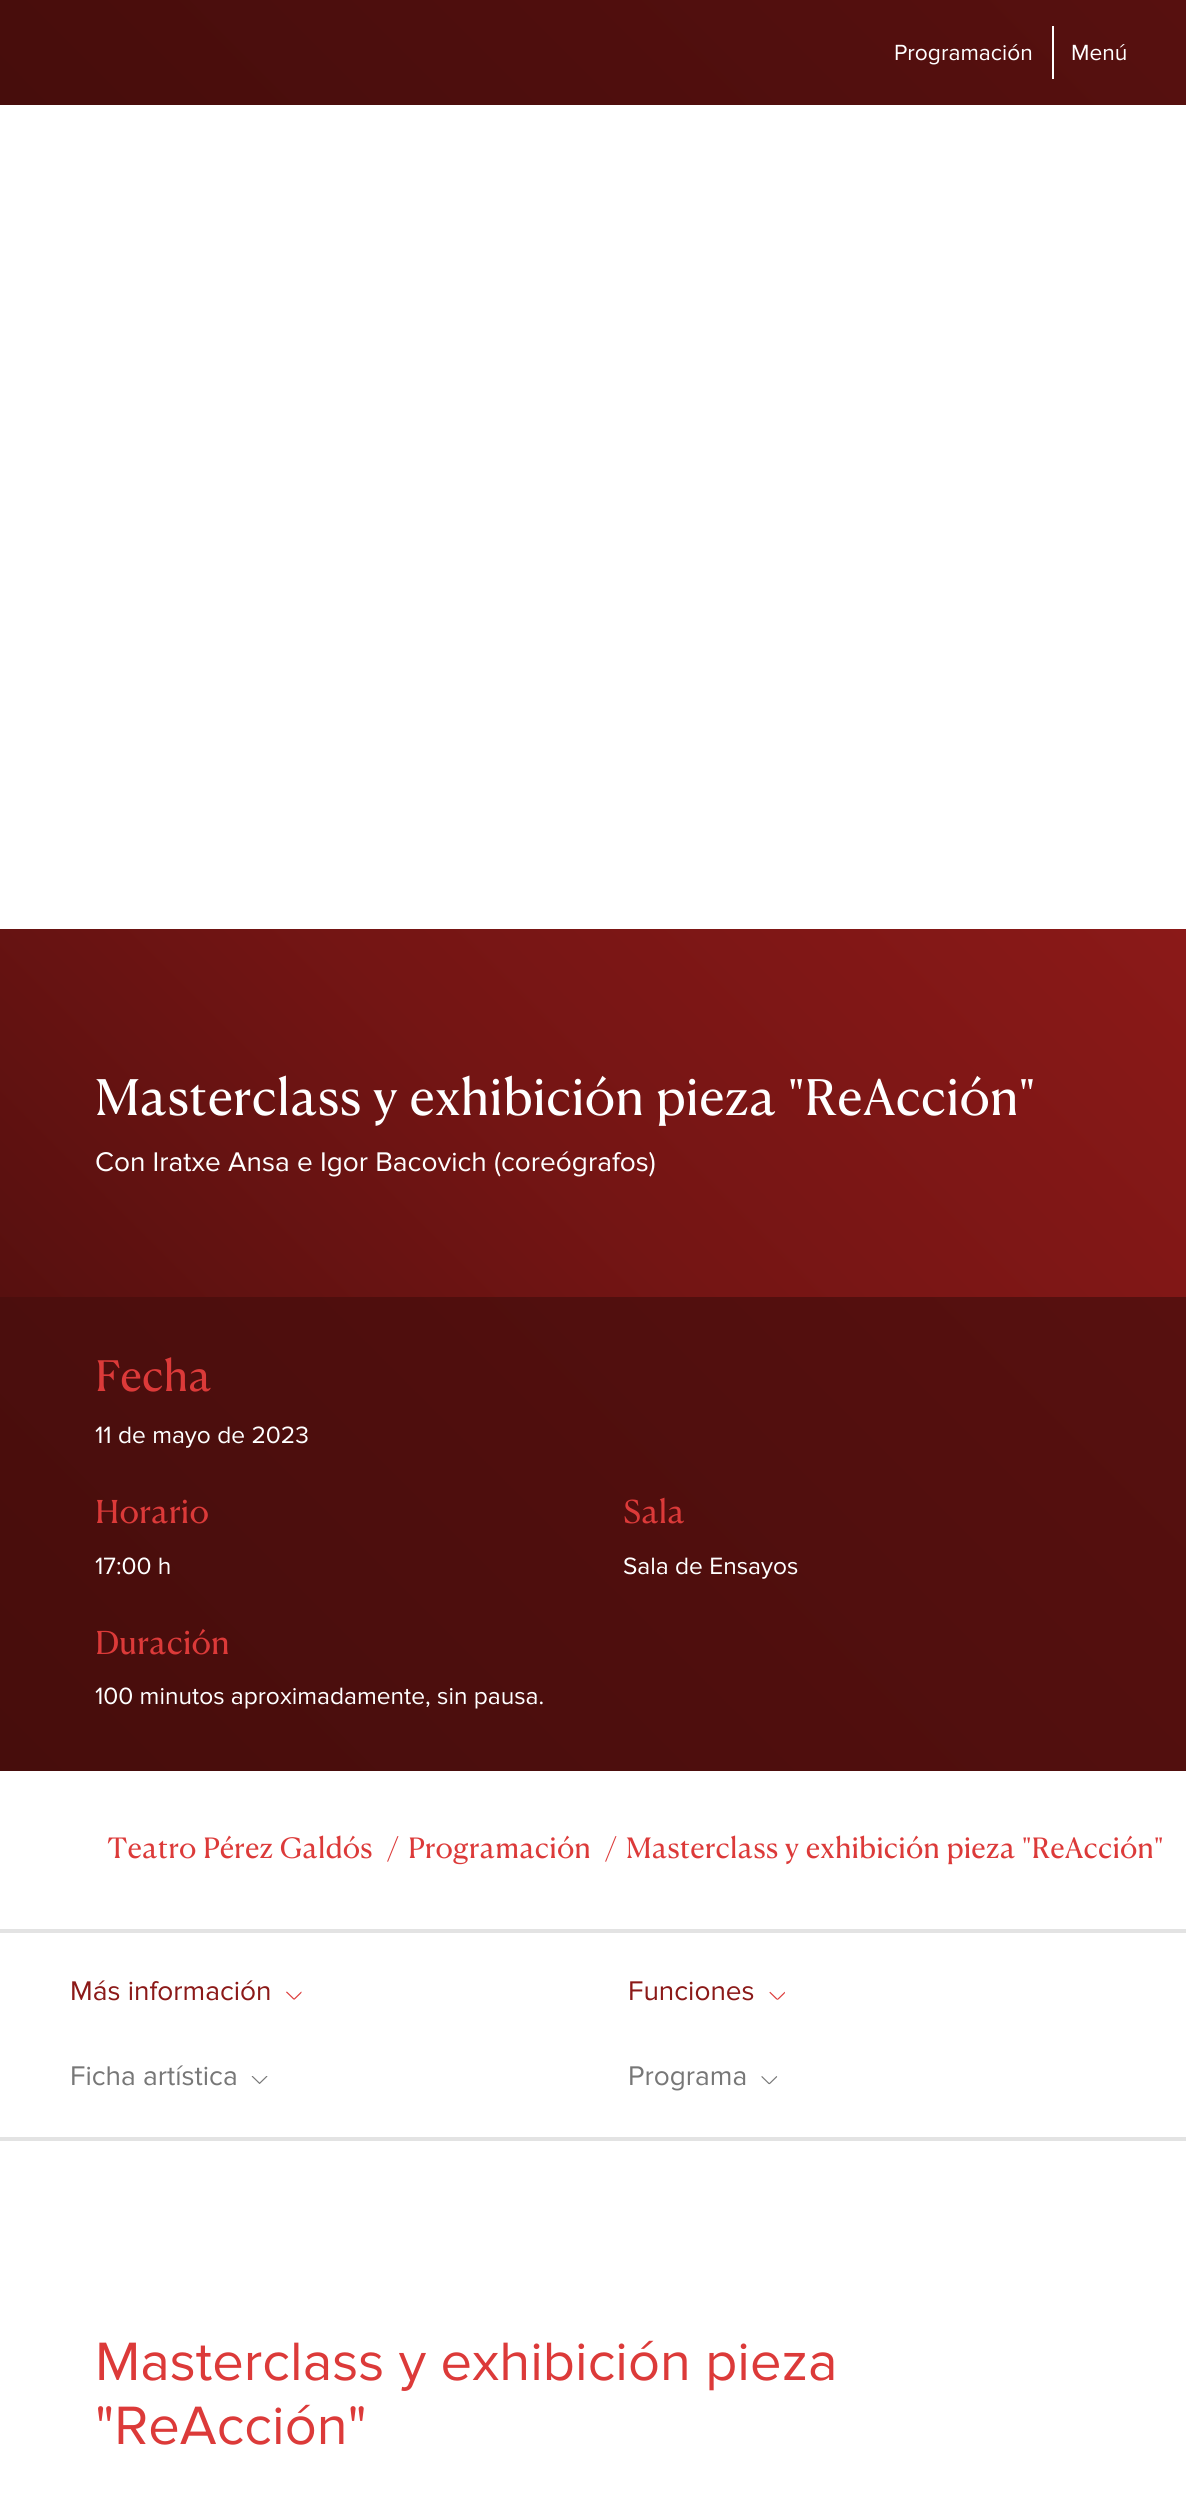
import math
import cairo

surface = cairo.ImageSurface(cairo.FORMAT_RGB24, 1186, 2504)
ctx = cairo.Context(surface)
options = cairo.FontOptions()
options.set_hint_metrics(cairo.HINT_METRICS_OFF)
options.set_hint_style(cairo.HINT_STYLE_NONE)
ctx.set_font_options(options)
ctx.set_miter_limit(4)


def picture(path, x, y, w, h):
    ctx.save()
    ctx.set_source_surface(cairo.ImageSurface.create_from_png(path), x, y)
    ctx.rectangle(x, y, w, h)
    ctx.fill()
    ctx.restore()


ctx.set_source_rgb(1, 1, 1)
ctx.paint()
gradient = cairo.LinearGradient(270, 375, 916, -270)
gradient.add_color_stop_rgba(0, 0.278, 0.051, 0.047, 1)
gradient.add_color_stop_rgba(0.45, 0.306, 0.055, 0.051, 1)
gradient.add_color_stop_rgba(1, 0.341, 0.063, 0.059, 1)
ctx.set_source(gradient)
ctx.rectangle(0, 0, 1186, 105)
ctx.fill()
ctx.select_font_face("Proxima Nova")
ctx.set_font_size(22.75)
ctx.set_source_rgb(1, 1, 1)
ctx.move_to(894, 60)
ctx.show_text("Programación")
ctx.rectangle(1052, 26, 2, 53)
ctx.fill()
ctx.move_to(1071, 60)
ctx.show_text("Menú")
gradient = cairo.LinearGradient(205, 1502, 982, 725)
gradient.add_color_stop_rgba(0, 0.341, 0.063, 0.059, 1)
gradient.add_color_stop_rgba(0.45, 0.455, 0.082, 0.078, 1)
gradient.add_color_stop_rgba(1, 0.545, 0.098, 0.094, 1)
ctx.set_source(gradient)
ctx.rectangle(0, 929, 1186, 368)
ctx.fill()
ctx.select_font_face("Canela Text")
ctx.set_font_size(49)
ctx.set_source_rgb(1, 1, 1)
ctx.move_to(95, 1115)
ctx.show_text("Masterclass y exhibición pieza \"ReAcción\"")
ctx.select_font_face("Proxima Nova")
ctx.set_font_size(28)
ctx.move_to(95, 1171)
ctx.show_text("Con Iratxe Ansa e Igor Bacovich (coreógrafos)")
gradient = cairo.LinearGradient(178, 1949, 1008, 1119)
gradient.add_color_stop_rgba(0, 0.278, 0.051, 0.047, 1)
gradient.add_color_stop_rgba(0.45, 0.306, 0.055, 0.051, 1)
gradient.add_color_stop_rgba(1, 0.341, 0.063, 0.059, 1)
ctx.set_source(gradient)
ctx.rectangle(0, 1297, 1186, 474)
ctx.fill()
ctx.select_font_face("Canela Text")
ctx.set_font_size(42)
ctx.set_source_rgb(0.863, 0.227, 0.224)
ctx.move_to(95, 1391)
ctx.show_text("Fecha")
ctx.select_font_face("Proxima Nova")
ctx.set_font_size(24.5)
ctx.set_source_rgb(1, 1, 1)
ctx.move_to(95, 1443)
ctx.show_text("11 de mayo de 2023")
ctx.select_font_face("Canela Text")
ctx.set_font_size(31.5)
ctx.set_source_rgb(0.863, 0.227, 0.224)
ctx.move_to(95, 1523)
ctx.show_text("Horario")
ctx.select_font_face("Proxima Nova")
ctx.set_font_size(24.5)
ctx.set_source_rgb(1, 1, 1)
ctx.move_to(95, 1574)
ctx.show_text("17:00 h")
ctx.select_font_face("Canela Text")
ctx.set_font_size(31.5)
ctx.set_source_rgb(0.863, 0.227, 0.224)
ctx.move_to(623, 1523)
ctx.show_text("Sala")
ctx.select_font_face("Proxima Nova")
ctx.set_font_size(24.5)
ctx.set_source_rgb(1, 1, 1)
ctx.move_to(623, 1574)
ctx.show_text("Sala de Ensayos")
ctx.select_font_face("Canela Text")
ctx.set_font_size(31.5)
ctx.set_source_rgb(0.863, 0.227, 0.224)
ctx.move_to(95, 1654)
ctx.show_text("Duración")
ctx.select_font_face("Proxima Nova")
ctx.set_font_size(24.5)
ctx.set_source_rgb(1, 1, 1)
ctx.move_to(95, 1704)
ctx.show_text("100 minutos aproximadamente, sin pausa.")
ctx.select_font_face("Canela Text")
ctx.set_font_size(28)
ctx.set_source_rgb(0.863, 0.227, 0.224)
ctx.move_to(107, 1858)
ctx.show_text("Teatro Pérez Galdós")
ctx.move_to(388, 1858)
ctx.show_text("/")
ctx.move_to(408, 1858)
ctx.show_text("Programación")
ctx.move_to(606, 1858)
ctx.show_text("/")
ctx.move_to(626, 1858)
ctx.show_text("Masterclass y exhibición pieza \"ReAcción\"")
ctx.set_source_rgb(0.89, 0.89, 0.89)
ctx.rectangle(0, 1929, 1186, 4)
ctx.fill()
ctx.rectangle(0, 2137, 1186, 4)
ctx.fill()
ctx.select_font_face("Proxima Nova")
ctx.set_source_rgb(0.545, 0.098, 0.094)
ctx.move_to(70, 2000)
ctx.show_text("Más información")
picture("img1.png", 286, 1991, 16, 9)
ctx.move_to(628, 2000)
ctx.show_text("Funciones")
picture("img2.png", 769, 1991, 16, 9)
ctx.set_source_rgb(0.467, 0.467, 0.467)
ctx.move_to(70, 2085)
ctx.show_text("Ficha artística")
picture("img3.png", 251, 2076, 17, 8)
ctx.move_to(628, 2085)
ctx.show_text("Programa")
picture("img4.png", 761, 2076, 17, 9)
ctx.set_font_size(56)
ctx.set_source_rgb(0.863, 0.227, 0.224)
ctx.move_to(95, 2380)
ctx.show_text("Masterclass y exhibición pieza")
ctx.move_to(95, 2444)
ctx.show_text("\"ReAcción\"")
surface.write_to_png("page.png")
